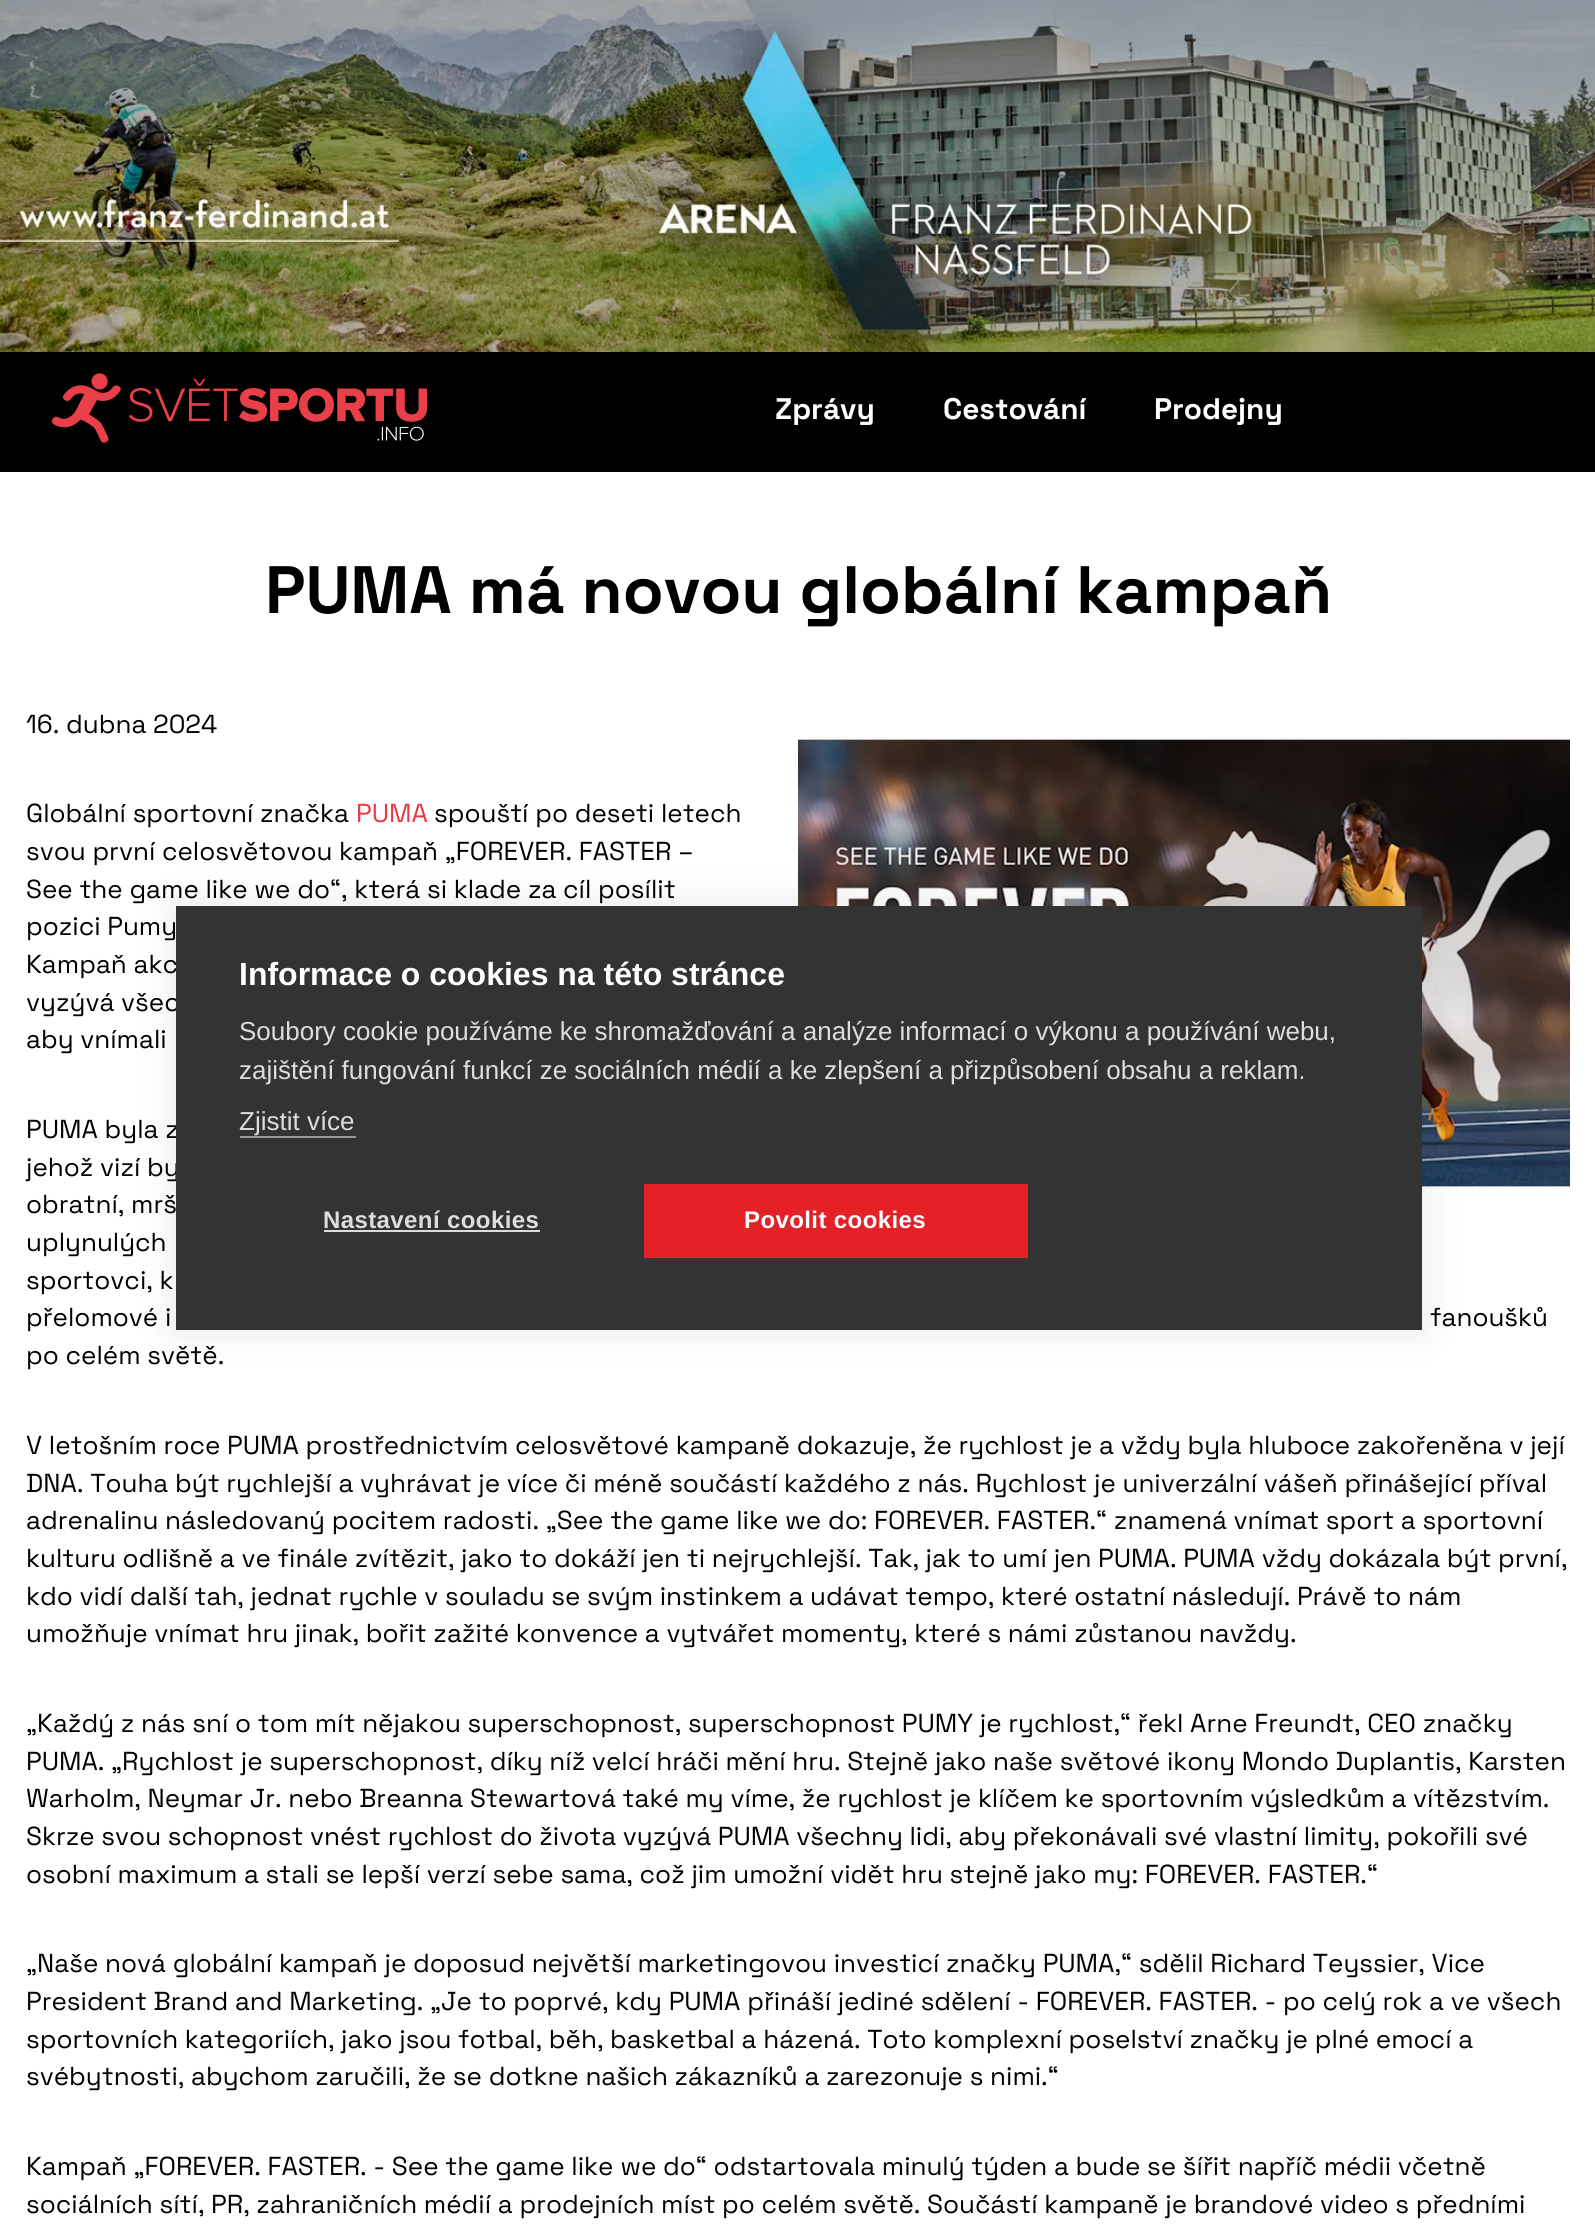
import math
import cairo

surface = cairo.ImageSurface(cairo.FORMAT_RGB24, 1595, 2234)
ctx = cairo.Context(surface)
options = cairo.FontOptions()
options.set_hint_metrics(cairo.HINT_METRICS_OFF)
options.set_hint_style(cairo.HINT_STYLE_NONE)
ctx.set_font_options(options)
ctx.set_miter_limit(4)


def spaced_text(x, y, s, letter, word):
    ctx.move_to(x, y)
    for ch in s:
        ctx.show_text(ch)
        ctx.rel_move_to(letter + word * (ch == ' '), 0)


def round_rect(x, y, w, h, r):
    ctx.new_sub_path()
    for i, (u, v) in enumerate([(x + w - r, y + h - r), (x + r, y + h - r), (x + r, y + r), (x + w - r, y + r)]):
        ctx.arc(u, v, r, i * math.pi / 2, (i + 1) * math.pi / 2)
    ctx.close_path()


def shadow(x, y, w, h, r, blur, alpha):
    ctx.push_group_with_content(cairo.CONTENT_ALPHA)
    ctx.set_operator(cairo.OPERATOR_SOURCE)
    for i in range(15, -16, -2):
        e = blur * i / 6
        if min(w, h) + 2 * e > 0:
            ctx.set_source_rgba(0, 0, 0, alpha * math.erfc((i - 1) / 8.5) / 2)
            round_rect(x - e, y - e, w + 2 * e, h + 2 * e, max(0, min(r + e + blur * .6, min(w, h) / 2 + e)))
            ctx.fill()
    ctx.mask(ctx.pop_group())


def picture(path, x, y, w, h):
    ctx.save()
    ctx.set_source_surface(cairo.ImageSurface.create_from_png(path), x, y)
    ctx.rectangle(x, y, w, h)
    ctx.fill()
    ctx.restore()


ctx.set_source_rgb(1, 1, 1)
ctx.paint()
picture("img1.png", 0, 0, 1595, 352)
ctx.set_source_rgb(0, 0, 0)
ctx.rectangle(0, 352, 1595, 120)
ctx.fill()
picture("img2.png", 52, 373, 375, 70)
ctx.select_font_face("Space Grotesk", cairo.FONT_SLANT_NORMAL, cairo.FONT_WEIGHT_BOLD)
ctx.set_font_size(29.75)
ctx.set_source_rgb(1, 1, 1)
ctx.move_to(775, 419)
ctx.show_text("Zprávy")
ctx.move_to(943, 419)
ctx.show_text("Cestování")
ctx.move_to(1154, 419)
ctx.show_text("Prodejny")
ctx.set_font_size(66.9)
ctx.set_source_rgb(0, 0, 0)
ctx.move_to(265, 613)
ctx.show_text("PUMA má novou globální kampaň")
ctx.select_font_face("Space Grotesk")
ctx.set_font_size(26)
ctx.move_to(26, 733)
ctx.show_text("16. dubna 2024")
ctx.move_to(26, 822)
ctx.show_text("Globální sportovní značka")
ctx.set_source_rgb(0.925, 0.212, 0.259)
ctx.move_to(356, 822)
ctx.show_text("PUMA")
ctx.set_source_rgb(0, 0, 0)
ctx.move_to(434, 822)
ctx.show_text("spouští po deseti letech")
ctx.move_to(26, 860)
ctx.show_text("svou první celosvětovou kampaň „FOREVER. FASTER –")
ctx.move_to(26, 898)
ctx.show_text("See the game like we do“, která si klade za cíl posílit")
ctx.move_to(26, 935)
ctx.show_text("pozici Pumy")
ctx.move_to(26, 973)
ctx.show_text("Kampaň akc")
ctx.move_to(26, 1011)
ctx.show_text("vyzývá všec")
ctx.move_to(26, 1048)
ctx.show_text("aby vnímali")
ctx.move_to(26, 1138)
ctx.show_text("PUMA byla z")
ctx.move_to(26, 1176)
ctx.show_text("jehož vizí by")
ctx.move_to(26, 1213)
ctx.show_text("obratní, mrš")
ctx.move_to(26, 1251)
ctx.show_text("uplynulých")
ctx.move_to(26, 1289)
ctx.show_text("sportovci, k")
ctx.move_to(26, 1326)
ctx.show_text("přelomové i")
ctx.move_to(1430, 1326)
ctx.show_text("fanoušků")
ctx.move_to(26, 1364)
ctx.show_text("po celém světě.")
ctx.move_to(26, 1454)
ctx.show_text("V letošním roce PUMA prostřednictvím celosvětové kampaně dokazuje, že rychlost je a vždy byla hluboce zakořeněna v její")
ctx.move_to(26, 1492)
ctx.show_text("DNA. Touha být rychlejší a vyhrávat je více či méně součástí každého z nás. Rychlost je univerzální vášeň přinášející příval")
ctx.move_to(26, 1529)
ctx.show_text("adrenalinu následovaný pocitem radosti. „See the game like we do: FOREVER. FASTER.“ znamená vnímat sport a sportovní")
ctx.move_to(26, 1567)
ctx.show_text("kulturu odlišně a ve finále zvítězit, jako to dokáží jen ti nejrychlejší. Tak, jak to umí jen PUMA. PUMA vždy dokázala být první,")
ctx.move_to(26, 1605)
ctx.show_text("kdo vidí další tah, jednat rychle v souladu se svým instinkem a udávat tempo, které ostatní následují. Právě to nám")
ctx.move_to(26, 1642)
ctx.show_text("umožňuje vnímat hru jinak, bořit zažité konvence a vytvářet momenty, které s námi zůstanou navždy.")
ctx.move_to(26, 1732)
ctx.show_text("„Každý z nás sní o tom mít nějakou superschopnost, superschopnost PUMY je rychlost,“ řekl Arne Freundt, CEO značky")
ctx.move_to(26, 1770)
ctx.show_text("PUMA. „Rychlost je superschopnost, díky níž velcí hráči mění hru. Stejně jako naše světové ikony Mondo Duplantis, Karsten")
ctx.move_to(26, 1807)
ctx.show_text("Warholm, Neymar Jr. nebo Breanna Stewartová také my víme, že rychlost je klíčem ke sportovním výsledkům a vítězstvím.")
ctx.move_to(26, 1845)
ctx.show_text("Skrze svou schopnost vnést rychlost do života vyzývá PUMA všechny lidi, aby překonávali své vlastní limity, pokořili své")
ctx.move_to(26, 1883)
ctx.show_text("osobní maximum a stali se lepší verzí sebe sama, což jim umožní vidět hru stejně jako my: FOREVER. FASTER.“")
ctx.move_to(26, 1972)
ctx.show_text("„Naše nová globální kampaň je doposud největší marketingovou investicí značky PUMA,“ sdělil Richard Teyssier, Vice")
ctx.move_to(26, 2010)
ctx.show_text("President Brand and Marketing. „Je to poprvé, kdy PUMA přináší jediné sdělení - FOREVER. FASTER. - po celý rok a ve všech")
ctx.move_to(26, 2048)
ctx.show_text("sportovních kategoriích, jako jsou fotbal, běh, basketbal a házená. Toto komplexní poselství značky je plné emocí a")
ctx.move_to(26, 2085)
ctx.show_text("svébytnosti, abychom zaručili, že se dotkne našich zákazníků a zarezonuje s nimi.“")
ctx.move_to(26, 2175)
ctx.show_text("Kampaň „FOREVER. FASTER. - See the game like we do“ odstartovala minulý týden a bude se šířit napříč médii včetně")
ctx.move_to(26, 2213)
ctx.show_text("sociálních sítí, PR, zahraničních médií a prodejních míst po celém světě. Součástí kampaně je brandové video s předními")
picture("img3.png", 798, 737, 772, 453)
ctx.set_source_rgb(0, 0, 0)
shadow(176, 906, 1246, 424, 0, 20, 0.1)
ctx.set_source_rgb(0.2, 0.2, 0.2)
ctx.rectangle(176, 906, 1246, 424)
ctx.fill()
ctx.select_font_face("Liberation Sans", cairo.FONT_SLANT_NORMAL, cairo.FONT_WEIGHT_BOLD)
ctx.set_font_size(32)
ctx.set_source_rgb(1, 1, 1)
ctx.move_to(239, 985)
ctx.show_text("Informace o cookies na této stránce")
ctx.select_font_face("Liberation Sans")
ctx.set_font_size(26)
ctx.set_source_rgb(0.867, 0.867, 0.867)
ctx.move_to(239, 1040)
ctx.show_text("Soubory cookie používáme ke shromažďování a analýze informací o výkonu a používání webu,")
ctx.move_to(239, 1079)
ctx.show_text("zajištění fungování funkcí ze sociálních médií a ke zlepšení a přizpůsobení obsahu a reklam.")
ctx.move_to(239, 1130)
ctx.show_text("Zjistit více")
ctx.set_source_rgb(0.6, 0.6, 0.6)
ctx.rectangle(240, 1136, 116, 2)
ctx.fill()
ctx.select_font_face("Liberation Sans", cairo.FONT_SLANT_NORMAL, cairo.FONT_WEIGHT_BOLD)
ctx.set_font_size(24)
ctx.set_source_rgb(0.867, 0.867, 0.867)
spaced_text(323, 1228, "Nastavení cookies", 0.4, 0)
ctx.rectangle(324, 1230, 216, 2)
ctx.fill()
ctx.set_source_rgb(0.894, 0.129, 0.153)
ctx.rectangle(644, 1184, 384, 74)
ctx.fill()
ctx.set_source_rgb(1, 1, 1)
spaced_text(744, 1228, "Povolit cookies", 0.4, 0)
surface.write_to_png("page.png")
